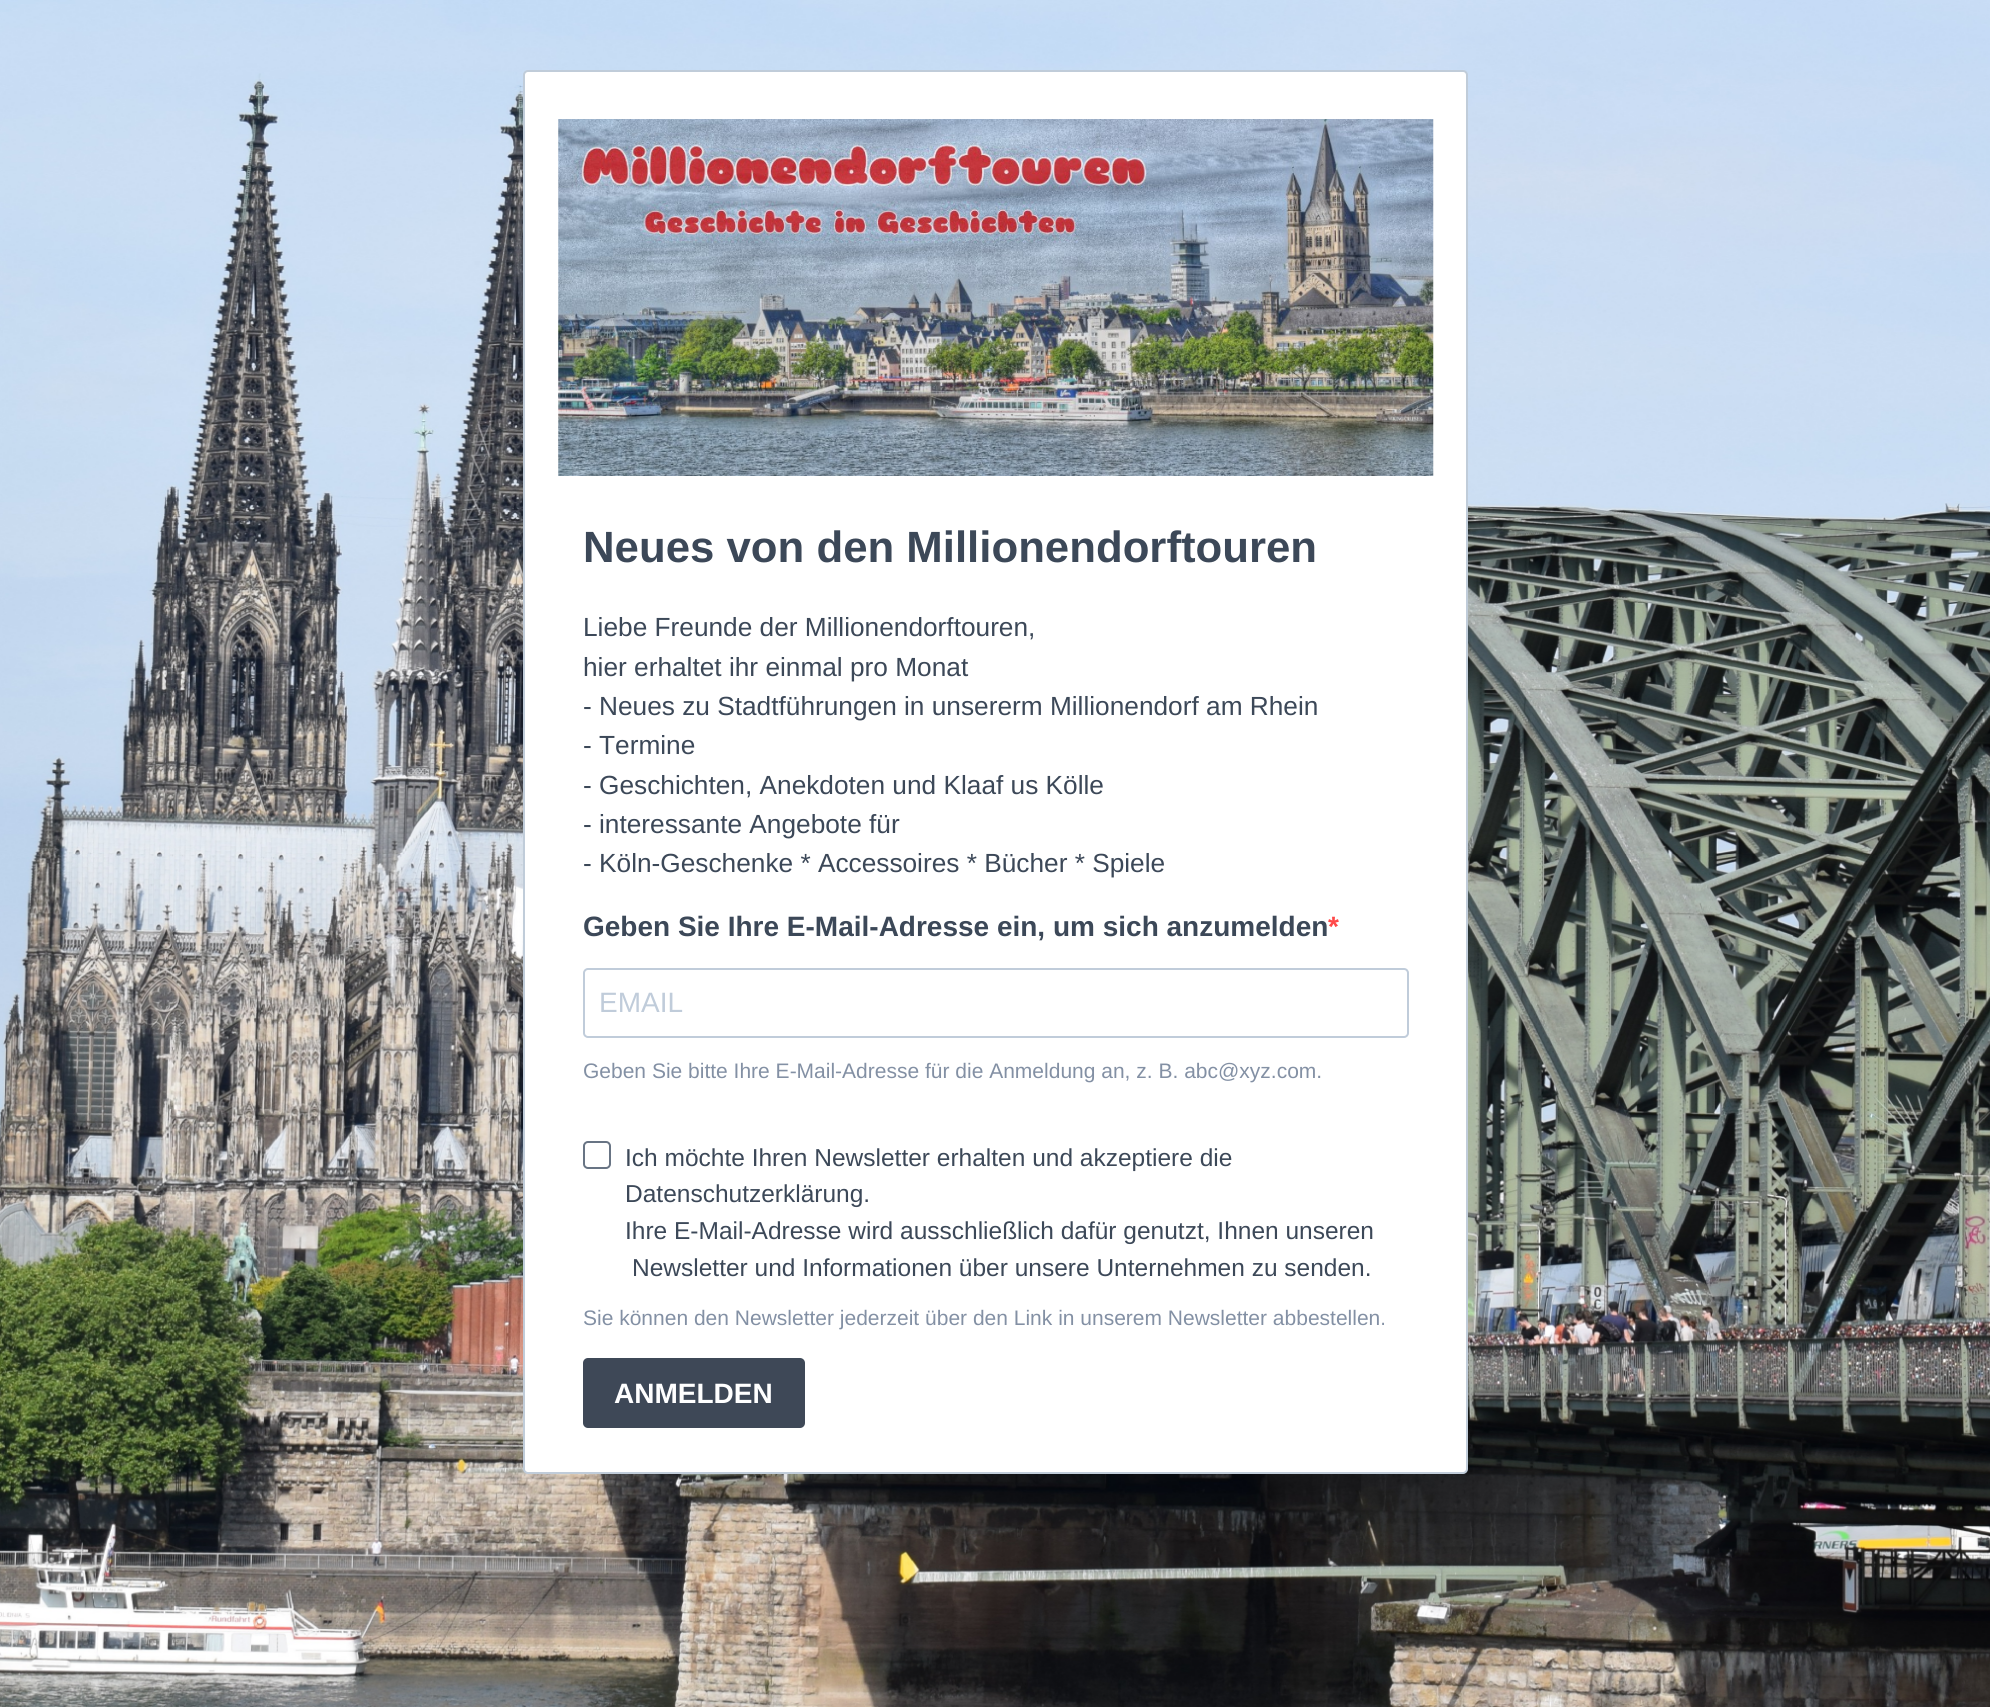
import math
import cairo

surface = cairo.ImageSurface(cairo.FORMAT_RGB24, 1990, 1707)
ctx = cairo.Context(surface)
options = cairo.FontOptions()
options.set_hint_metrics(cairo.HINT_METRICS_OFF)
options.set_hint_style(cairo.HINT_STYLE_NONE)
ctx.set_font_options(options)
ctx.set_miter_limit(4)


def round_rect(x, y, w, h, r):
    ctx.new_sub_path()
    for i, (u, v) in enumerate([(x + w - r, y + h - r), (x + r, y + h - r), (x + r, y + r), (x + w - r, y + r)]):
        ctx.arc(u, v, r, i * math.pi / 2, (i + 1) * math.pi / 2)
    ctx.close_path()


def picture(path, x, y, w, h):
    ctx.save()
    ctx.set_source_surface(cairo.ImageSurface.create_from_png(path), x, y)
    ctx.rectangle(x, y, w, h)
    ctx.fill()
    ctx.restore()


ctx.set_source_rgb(1, 1, 1)
ctx.paint()
picture("img1.png", 0, 0, 1990, 1707)
ctx.set_source_rgb(1, 1, 1)
round_rect(524, 71, 943, 1402, 4)
ctx.fill_preserve()
ctx.set_source_rgb(0.753, 0.8, 0.851)
ctx.stroke()
picture("img2.png", 558, 119, 876, 357)
ctx.select_font_face("Liberation Sans", cairo.FONT_SLANT_NORMAL, cairo.FONT_WEIGHT_BOLD)
ctx.set_font_size(43.75)
ctx.set_source_rgb(0.235, 0.282, 0.345)
ctx.move_to(583, 562)
ctx.show_text("Neues von den Millionendorftouren")
ctx.select_font_face("Liberation Sans")
ctx.set_font_size(26.25)
ctx.move_to(583, 636)
ctx.show_text("Liebe Freunde der Millionendorftouren,")
ctx.move_to(583, 676)
ctx.show_text("hier erhaltet ihr einmal pro Monat")
ctx.move_to(583, 715)
ctx.show_text("- Neues zu Stadtführungen in unsererm Millionendorf am Rhein")
ctx.move_to(583, 754)
ctx.show_text("- Termine")
ctx.move_to(583, 794)
ctx.show_text("- Geschichten, Anekdoten und Klaaf us Kölle")
ctx.move_to(583, 833)
ctx.show_text("- interessante Angebote für")
ctx.move_to(583, 872)
ctx.show_text("- Köln-Geschenke * Accessoires * Bücher * Spiele")
ctx.select_font_face("Liberation Sans", cairo.FONT_SLANT_NORMAL, cairo.FONT_WEIGHT_BOLD)
ctx.set_font_size(28)
ctx.move_to(583, 936)
ctx.show_text("Geben Sie Ihre E-Mail-Adresse ein, um sich anzumelden")
ctx.set_source_rgb(1, 0.286, 0.286)
ctx.move_to(1328, 936)
ctx.show_text("*")
round_rect(584, 969, 824, 68, 4)
ctx.set_source_rgb(0.753, 0.8, 0.855)
ctx.stroke()
ctx.select_font_face("Liberation Sans")
ctx.move_to(599, 1012)
ctx.show_text("EMAIL")
ctx.set_font_size(21)
ctx.set_source_rgb(0.514, 0.565, 0.643)
ctx.move_to(583, 1078)
ctx.show_text("Geben Sie bitte Ihre E-Mail-Adresse für die Anmeldung an, z. B. abc@xyz.com.")
round_rect(584, 1142, 26, 26, 4)
ctx.set_source_rgb(0.408, 0.455, 0.518)
ctx.stroke()
ctx.set_font_size(24.5)
ctx.set_source_rgb(0.235, 0.282, 0.345)
ctx.move_to(625, 1166)
ctx.show_text("Ich möchte Ihren Newsletter erhalten und akzeptiere die")
ctx.move_to(625, 1202)
ctx.show_text("Datenschutzerklärung.")
ctx.move_to(625, 1239)
ctx.show_text("Ihre E-Mail-Adresse wird ausschließlich dafür genutzt, Ihnen unseren")
ctx.move_to(632, 1276)
ctx.show_text("Newsletter und Informationen über unsere Unternehmen zu senden.")
ctx.set_font_size(21)
ctx.set_source_rgb(0.514, 0.565, 0.643)
ctx.move_to(583, 1325)
ctx.show_text("Sie können den Newsletter jederzeit über den Link in unserem Newsletter abbestellen.")
ctx.set_source_rgb(0.243, 0.282, 0.341)
round_rect(583, 1358, 222, 70, 5)
ctx.fill()
ctx.select_font_face("Liberation Sans", cairo.FONT_SLANT_NORMAL, cairo.FONT_WEIGHT_BOLD)
ctx.set_font_size(28)
ctx.set_source_rgb(1, 1, 1)
ctx.move_to(614, 1403)
ctx.show_text("ANMELDEN")
surface.write_to_png("page.png")
